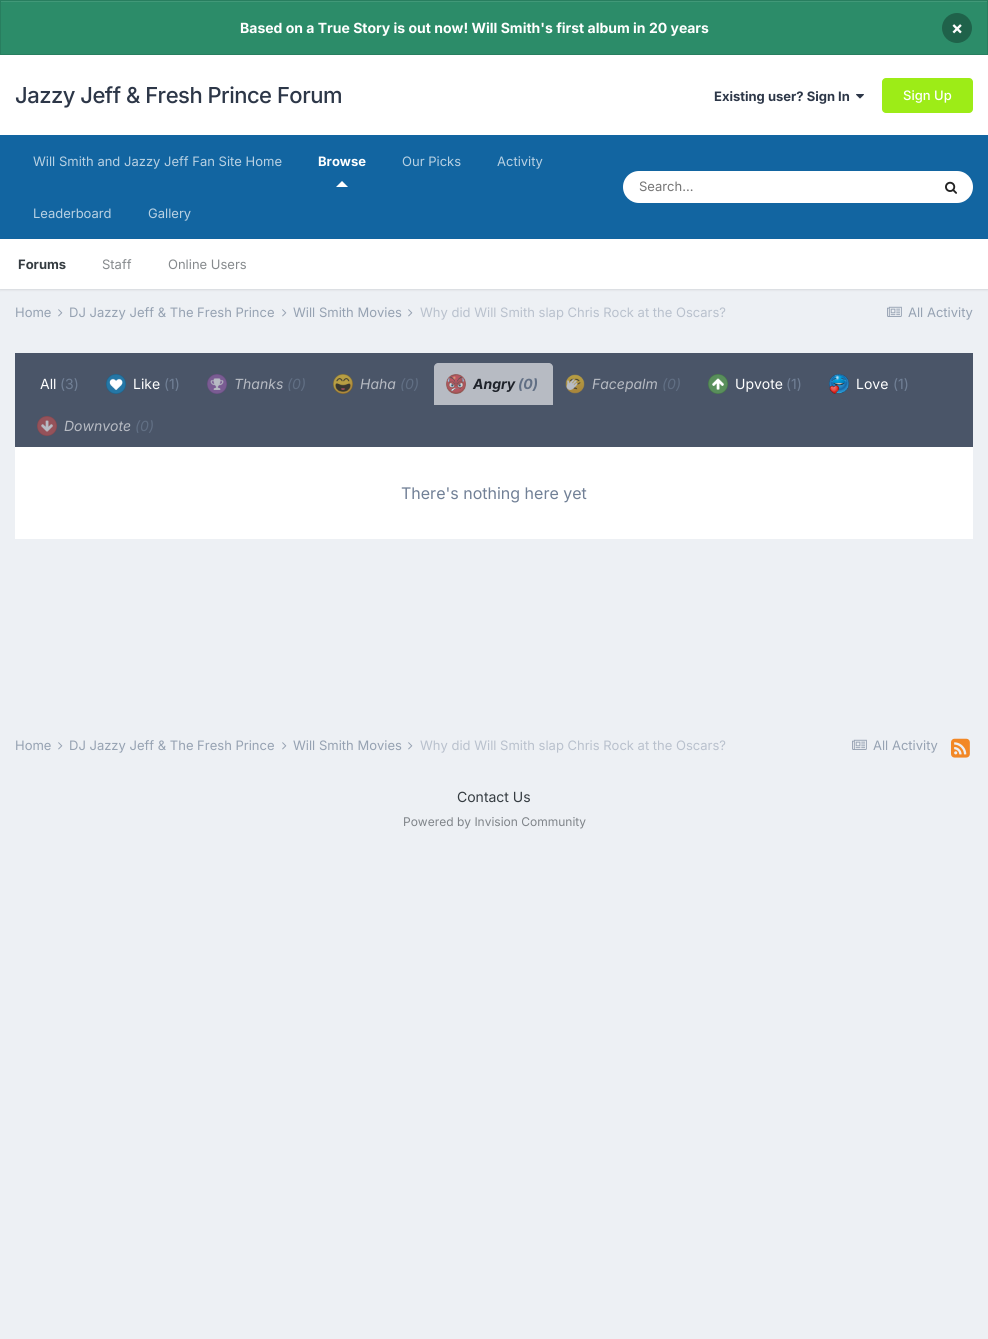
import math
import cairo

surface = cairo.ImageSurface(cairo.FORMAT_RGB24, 988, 1339)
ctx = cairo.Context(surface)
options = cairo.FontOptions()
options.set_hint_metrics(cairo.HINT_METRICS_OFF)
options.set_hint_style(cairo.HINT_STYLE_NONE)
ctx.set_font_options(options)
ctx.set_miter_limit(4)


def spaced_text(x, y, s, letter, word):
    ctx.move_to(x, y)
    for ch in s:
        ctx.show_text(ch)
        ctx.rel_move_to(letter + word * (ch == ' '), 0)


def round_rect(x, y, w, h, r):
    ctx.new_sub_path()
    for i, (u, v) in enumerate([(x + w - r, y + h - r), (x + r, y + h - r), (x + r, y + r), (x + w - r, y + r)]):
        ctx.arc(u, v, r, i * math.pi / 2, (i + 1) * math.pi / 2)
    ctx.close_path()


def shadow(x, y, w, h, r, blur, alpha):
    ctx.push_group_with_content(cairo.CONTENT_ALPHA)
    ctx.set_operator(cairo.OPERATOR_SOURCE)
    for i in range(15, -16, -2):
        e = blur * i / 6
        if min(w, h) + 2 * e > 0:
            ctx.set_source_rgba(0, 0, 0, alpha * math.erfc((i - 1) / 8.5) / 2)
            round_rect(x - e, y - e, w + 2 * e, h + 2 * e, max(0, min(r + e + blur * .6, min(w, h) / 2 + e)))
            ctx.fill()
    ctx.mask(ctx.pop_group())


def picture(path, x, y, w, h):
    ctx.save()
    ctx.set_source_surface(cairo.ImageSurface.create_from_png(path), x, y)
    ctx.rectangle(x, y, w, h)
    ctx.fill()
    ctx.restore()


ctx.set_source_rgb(0.929, 0.941, 0.957)
ctx.paint()
ctx.set_source_rgb(0.173, 0.549, 0.412)
ctx.rectangle(1, 2, 986, 52)
ctx.fill()
ctx.set_source_rgb(0.255, 0.596, 0.471)
ctx.rectangle(1, 1, 986, 1)
ctx.fill()
ctx.rectangle(0.5, 0.5, 987, 54)
ctx.set_source_rgb(0.157, 0.494, 0.373)
ctx.set_line_width(1)
ctx.stroke()
ctx.select_font_face("Inter", cairo.FONT_SLANT_NORMAL, cairo.FONT_WEIGHT_BOLD)
ctx.set_font_size(14)
ctx.set_source_rgb(1, 1, 1)
ctx.move_to(240, 33)
ctx.show_text("Based on a True Story is out now! Will Smith's first album in 20 years")
ctx.set_source_rgb(0.122, 0.384, 0.29)
ctx.new_path()
ctx.arc(957, 28, 15, 0, 2 * math.pi)
ctx.fill()
ctx.set_font_size(18)
ctx.set_source_rgb(1, 1, 1)
ctx.move_to(951, 34)
ctx.show_text("×")
ctx.rectangle(0, 55, 988, 80)
ctx.fill()
ctx.select_font_face("Inter Medium")
ctx.set_font_size(22)
ctx.set_source_rgb(0.176, 0.216, 0.282)
spaced_text(15, 103, "Jazzy Jeff & Fresh Prince Forum", -0.5, 0)
ctx.select_font_face("Inter", cairo.FONT_SLANT_NORMAL, cairo.FONT_WEIGHT_BOLD)
ctx.set_font_size(13)
ctx.move_to(714, 101)
ctx.show_text("Existing user? Sign In")
picture("img1.png", 856, 94, 8, 5)
ctx.set_source_rgb(0.616, 0.925, 0.09)
round_rect(882, 78, 91, 35, 4)
ctx.fill()
ctx.select_font_face("Inter Medium")
ctx.set_source_rgb(1, 1, 1)
ctx.move_to(903, 100)
ctx.show_text("Sign Up")
ctx.set_source_rgb(0.071, 0.396, 0.631)
ctx.rectangle(0, 135, 988, 104)
ctx.fill()
ctx.select_font_face("Inter", cairo.FONT_SLANT_NORMAL, cairo.FONT_WEIGHT_BOLD)
ctx.set_source_rgb(1, 1, 1)
ctx.move_to(318, 166)
ctx.show_text("Browse")
ctx.new_path()
ctx.move_to(348, 187)
ctx.line_to(336, 187)
ctx.line_to(342, 181)
ctx.close_path()
ctx.fill()
ctx.set_source_rgb(0, 0, 0)
shadow(0, 240, 988, 50, 0, 1, 0.1)
ctx.set_source_rgb(1, 1, 1)
ctx.rectangle(0, 239, 988, 50)
ctx.fill()
ctx.set_source_rgb(0.208, 0.235, 0.255)
ctx.move_to(18, 269)
ctx.show_text("Forums")
ctx.select_font_face("Inter")
ctx.set_source_rgb(0.525, 0.541, 0.553)
ctx.move_to(102, 269)
ctx.show_text("Staff")
ctx.move_to(168, 269)
ctx.show_text("Online Users")
ctx.set_source_rgb(0.722, 0.82, 0.89)
ctx.move_to(33, 166)
ctx.show_text("Will Smith and Jazzy Jeff Fan Site Home")
ctx.move_to(402, 166)
ctx.show_text("Our Picks")
ctx.move_to(497, 166)
ctx.show_text("Activity")
ctx.move_to(33, 218)
ctx.show_text("Leaderboard")
ctx.move_to(148, 218)
ctx.show_text("Gallery")
ctx.set_source_rgb(1, 1, 1)
round_rect(623, 171, 350, 32, 16)
ctx.fill()
ctx.set_source_rgb(0.459, 0.459, 0.459)
ctx.move_to(639, 191)
ctx.show_text("Search...")
picture("img2.png", 945, 181, 12, 13)
ctx.set_source_rgb(0.588, 0.635, 0.698)
ctx.move_to(15, 317)
ctx.show_text("Home")
picture("img3.png", 58, 309, 5, 8)
ctx.move_to(69, 317)
ctx.show_text("DJ Jazzy Jeff & The Fresh Prince")
picture("img3.png", 282, 309, 5, 8)
ctx.move_to(293, 317)
ctx.show_text("Will Smith Movies")
picture("img3.png", 408, 309, 5, 8)
ctx.set_source_rgb(0.725, 0.757, 0.804)
ctx.move_to(420, 317)
ctx.show_text("Why did Will Smith slap Chris Rock at the Oscars?")
picture("img4.png", 887, 306, 15, 11)
ctx.set_source_rgb(0.588, 0.635, 0.698)
ctx.move_to(908, 317)
ctx.show_text("All Activity")
ctx.set_source_rgb(0.29, 0.333, 0.408)
ctx.rectangle(15, 353, 958, 94)
ctx.fill()
ctx.set_font_size(14)
ctx.set_source_rgb(1, 1, 1)
ctx.move_to(40, 389)
ctx.show_text("All")
ctx.set_source_rgb(0.443, 0.502, 0.588)
ctx.move_to(60, 389)
ctx.show_text("(3)")
picture("img5.png", 106, 374, 20, 20)
ctx.set_source_rgb(1, 1, 1)
ctx.move_to(133, 389)
ctx.show_text("Like")
ctx.set_source_rgb(0.443, 0.502, 0.588)
ctx.move_to(164, 389)
ctx.show_text("(1)")
picture("img6.png", 207, 374, 20, 20)
ctx.select_font_face("Inter", cairo.FONT_SLANT_ITALIC)
ctx.set_source_rgb(0.718, 0.733, 0.765)
ctx.move_to(234, 389)
ctx.show_text("Thanks")
ctx.set_source_rgb(0.38, 0.435, 0.518)
ctx.move_to(287, 389)
ctx.show_text("(0)")
picture("img7.png", 333, 374, 20, 20)
ctx.set_source_rgb(0.718, 0.733, 0.765)
ctx.move_to(360, 389)
ctx.show_text("Haha")
ctx.set_source_rgb(0.38, 0.435, 0.518)
ctx.move_to(400, 389)
ctx.show_text("(0)")
ctx.set_source_rgb(0.718, 0.733, 0.765)
ctx.new_path()
ctx.move_to(438, 363)
ctx.line_to(549, 363)
ctx.curve_to(551, 363, 553, 365, 553, 367)
ctx.line_to(553, 405)
ctx.line_to(434, 405)
ctx.line_to(434, 367)
ctx.curve_to(434, 365, 436, 363, 438, 363)
ctx.close_path()
ctx.fill()
picture("img8.png", 446, 374, 20, 20)
ctx.select_font_face("Inter", cairo.FONT_SLANT_ITALIC, cairo.FONT_WEIGHT_BOLD)
ctx.set_source_rgb(0.118, 0.133, 0.165)
ctx.move_to(473, 389)
ctx.show_text("Angry")
ctx.set_source_rgb(0.38, 0.435, 0.518)
ctx.move_to(518, 389)
ctx.show_text("(0)")
picture("img9.png", 565, 374, 20, 20)
ctx.select_font_face("Inter", cairo.FONT_SLANT_ITALIC)
ctx.set_source_rgb(0.718, 0.733, 0.765)
ctx.move_to(592, 389)
ctx.show_text("Facepalm")
ctx.set_source_rgb(0.38, 0.435, 0.518)
ctx.move_to(662, 389)
ctx.show_text("(0)")
picture("img10.png", 708, 374, 20, 20)
ctx.select_font_face("Inter")
ctx.set_source_rgb(1, 1, 1)
ctx.move_to(735, 389)
ctx.show_text("Upvote")
ctx.set_source_rgb(0.443, 0.502, 0.588)
ctx.move_to(786, 389)
ctx.show_text("(1)")
picture("img11.png", 829, 374, 20, 20)
ctx.set_source_rgb(1, 1, 1)
ctx.move_to(856, 389)
ctx.show_text("Love")
ctx.set_source_rgb(0.443, 0.502, 0.588)
ctx.move_to(893, 389)
ctx.show_text("(1)")
picture("img12.png", 37, 416, 20, 20)
ctx.select_font_face("Inter", cairo.FONT_SLANT_ITALIC)
ctx.set_source_rgb(0.718, 0.733, 0.765)
ctx.move_to(64, 431)
ctx.show_text("Downvote")
ctx.set_source_rgb(0.38, 0.435, 0.518)
ctx.move_to(135, 431)
ctx.show_text("(0)")
ctx.set_source_rgb(1, 1, 1)
ctx.rectangle(15, 447, 958, 92)
ctx.fill()
ctx.select_font_face("Inter")
ctx.set_font_size(16)
ctx.set_source_rgb(0.443, 0.502, 0.588)
ctx.move_to(401, 499)
ctx.show_text("There's nothing here yet")
ctx.set_font_size(13)
ctx.set_source_rgb(0.588, 0.635, 0.698)
ctx.move_to(15, 750)
ctx.show_text("Home")
picture("img3.png", 58, 742, 5, 8)
ctx.move_to(69, 750)
ctx.show_text("DJ Jazzy Jeff & The Fresh Prince")
picture("img3.png", 282, 742, 5, 8)
ctx.move_to(293, 750)
ctx.show_text("Will Smith Movies")
picture("img3.png", 408, 742, 5, 8)
ctx.set_source_rgb(0.725, 0.757, 0.804)
ctx.move_to(420, 750)
ctx.show_text("Why did Will Smith slap Chris Rock at the Oscars?")
picture("img4.png", 852, 739, 15, 11)
ctx.set_source_rgb(0.588, 0.635, 0.698)
ctx.move_to(873, 750)
ctx.show_text("All Activity")
picture("img13.png", 951, 738, 19, 20)
ctx.set_font_size(14)
ctx.set_source_rgb(0.208, 0.235, 0.255)
ctx.move_to(457, 802)
ctx.show_text("Contact Us")
ctx.set_font_size(12)
ctx.set_source_rgb(0.498, 0.518, 0.537)
ctx.move_to(403, 826)
ctx.show_text("Powered by Invision Community")
surface.write_to_png("page.png")
